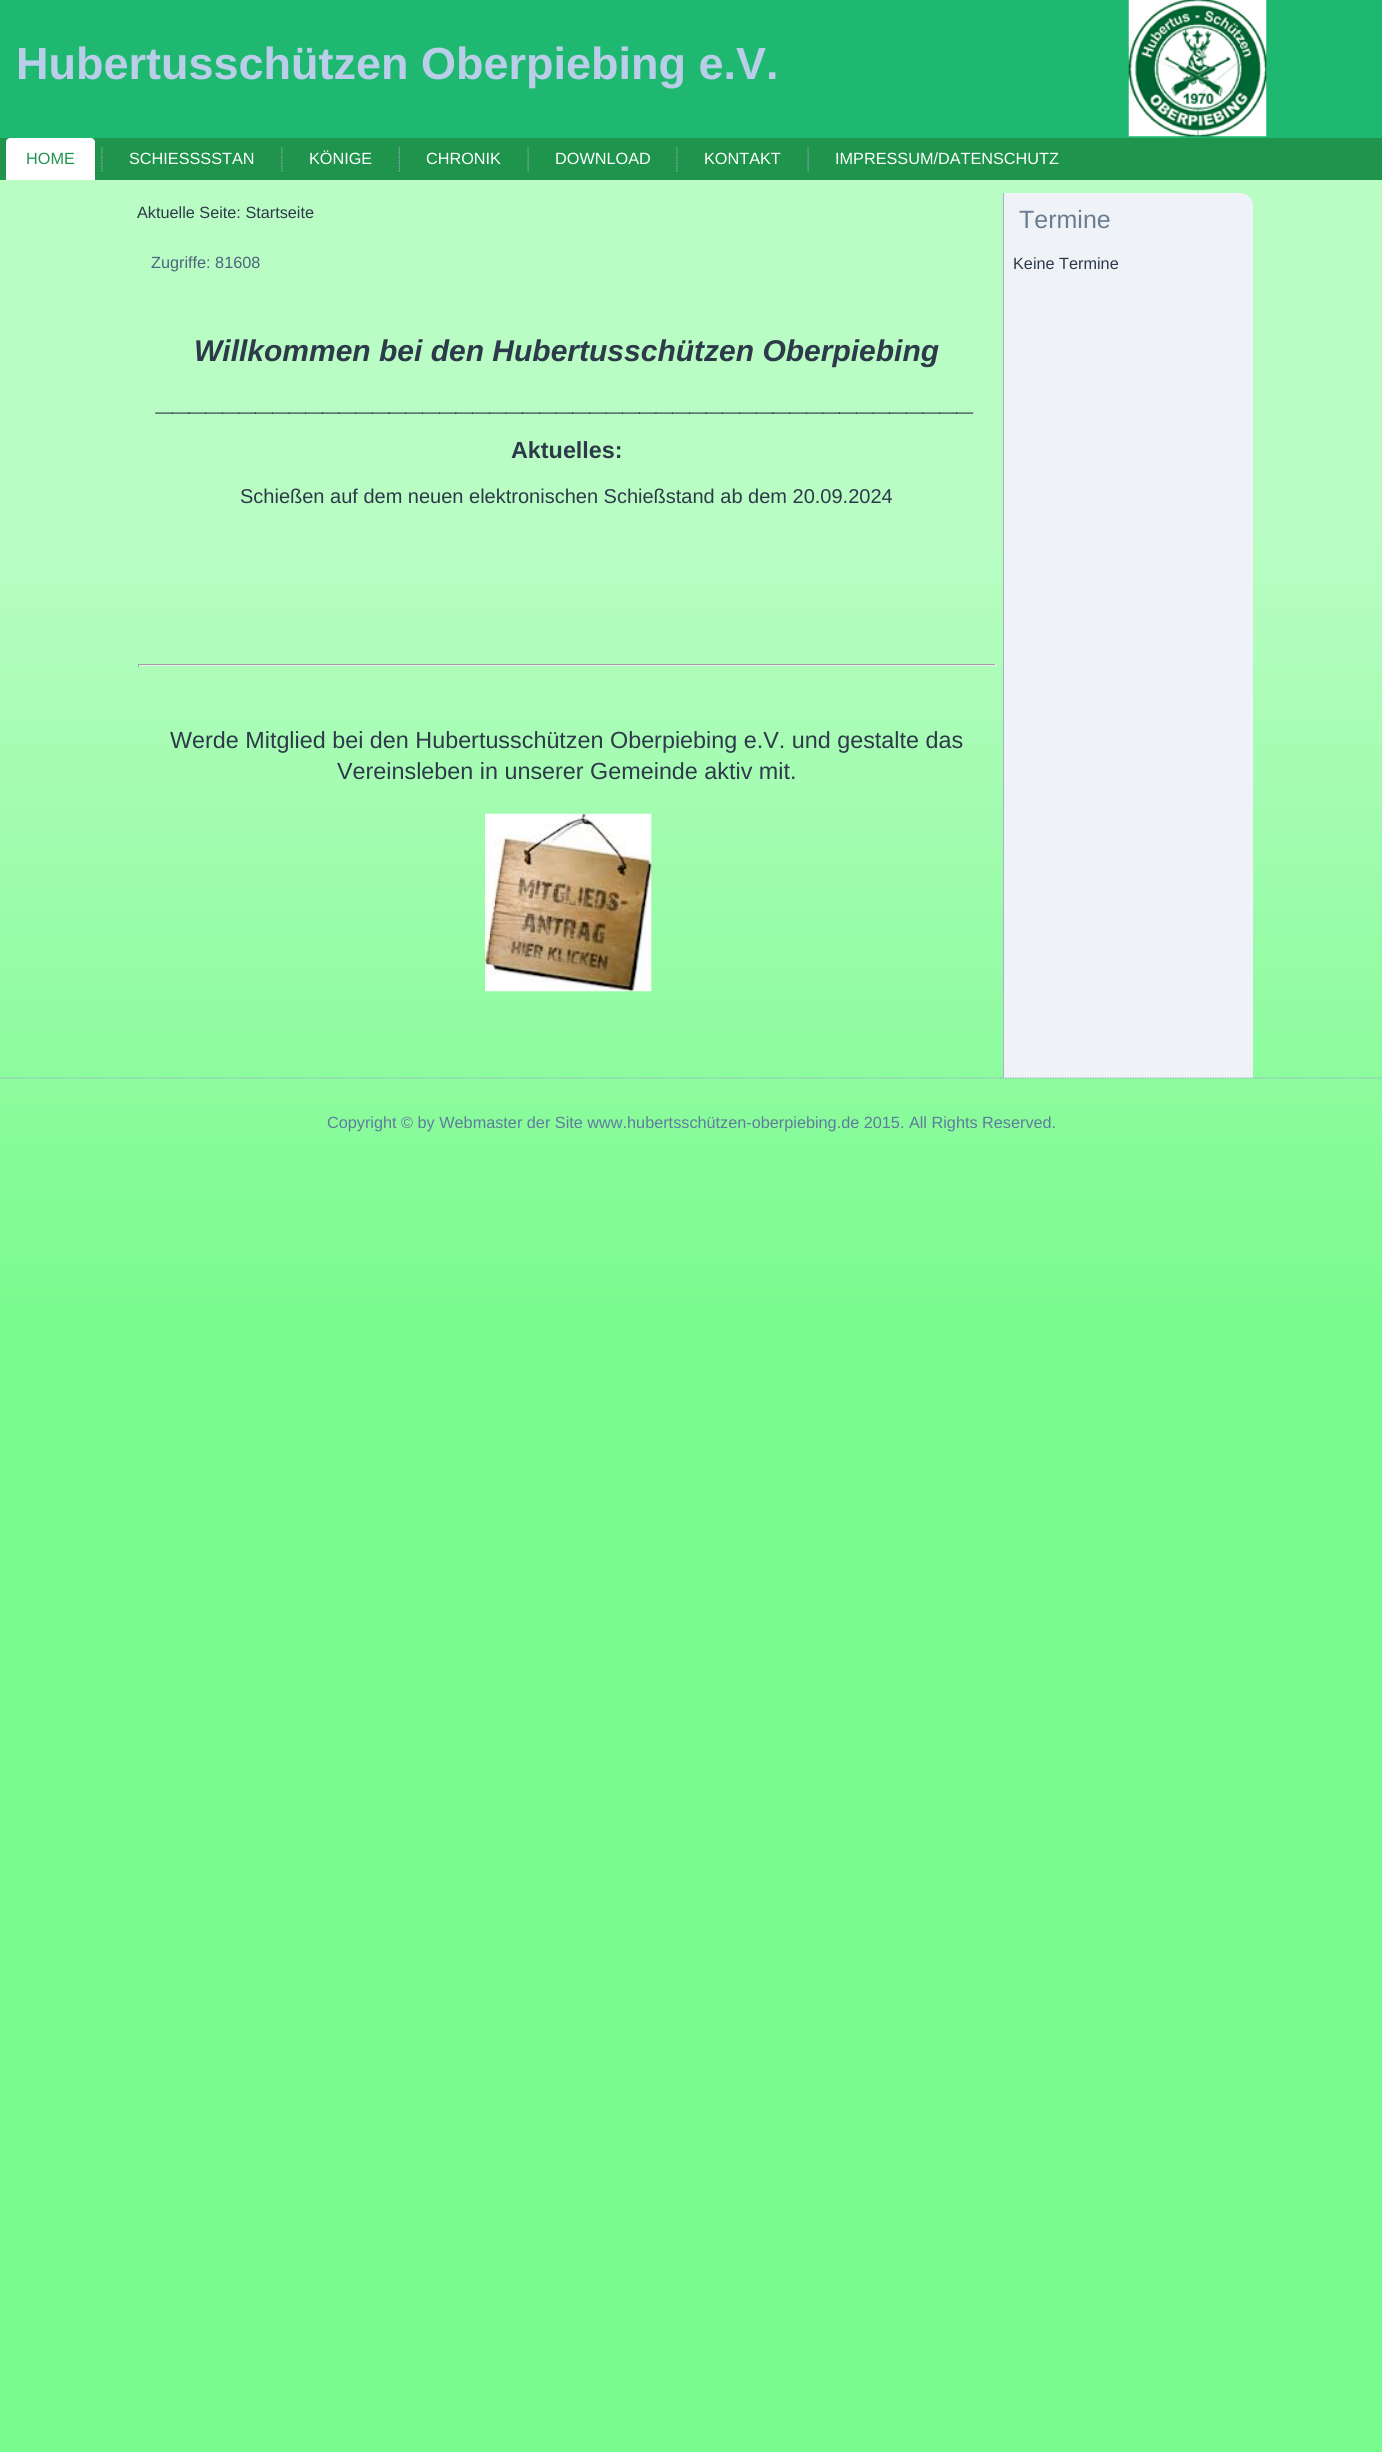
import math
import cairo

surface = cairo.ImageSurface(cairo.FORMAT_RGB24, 1382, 2452)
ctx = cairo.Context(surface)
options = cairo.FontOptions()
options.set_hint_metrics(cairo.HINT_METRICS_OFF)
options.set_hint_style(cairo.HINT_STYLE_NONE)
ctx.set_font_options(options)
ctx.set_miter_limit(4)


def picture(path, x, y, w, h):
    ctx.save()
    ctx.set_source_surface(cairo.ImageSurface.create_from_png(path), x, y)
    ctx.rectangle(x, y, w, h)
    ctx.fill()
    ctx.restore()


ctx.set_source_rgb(1, 1, 1)
ctx.paint()
gradient = cairo.LinearGradient(691, 0, 691, 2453)
gradient.add_color_stop_rgba(0, 0.729, 0.992, 0.769, 1)
gradient.add_color_stop_rgba(0.21, 0.729, 0.992, 0.769, 1)
gradient.add_color_stop_rgba(0.54, 0.475, 0.984, 0.553, 1)
ctx.set_source(gradient)
ctx.rectangle(0, 180, 1382, 2272)
ctx.fill()
ctx.set_source_rgb(0.118, 0.722, 0.439)
ctx.rectangle(0, 0, 1382, 138)
ctx.fill()
ctx.select_font_face("Liberation Sans", cairo.FONT_SLANT_NORMAL, cairo.FONT_WEIGHT_BOLD)
ctx.set_font_size(45)
ctx.set_source_rgb(0.729, 0.808, 0.914)
ctx.move_to(16, 79)
ctx.show_text("Hubertusschützen Oberpiebing e.V.")
picture("img1.png", 1128, 0, 139, 137)
ctx.set_source_rgb(0.118, 0.58, 0.298)
ctx.rectangle(0, 138, 1382, 42)
ctx.fill()
ctx.set_source_rgb(1, 1, 1)
ctx.new_path()
ctx.move_to(10, 138)
ctx.line_to(91, 138)
ctx.curve_to(93, 138, 95, 140, 95, 142)
ctx.line_to(95, 180)
ctx.line_to(6, 180)
ctx.line_to(6, 142)
ctx.curve_to(6, 140, 8, 138, 10, 138)
ctx.close_path()
ctx.fill()
ctx.select_font_face("Liberation Sans")
ctx.set_font_size(16.25)
ctx.set_source_rgb(0.118, 0.58, 0.298)
ctx.move_to(26, 164)
ctx.show_text("HOME")
picture("img2.png", 101, 147, 2, 25)
ctx.set_source_rgb(1, 1, 1)
ctx.move_to(129, 164)
ctx.show_text("SCHIESSSSTAN")
picture("img2.png", 281, 147, 2, 25)
ctx.move_to(309, 164)
ctx.show_text("KÖNIGE")
picture("img3.png", 398, 147, 2, 25)
ctx.move_to(426, 164)
ctx.show_text("CHRONIK")
picture("img4.png", 527, 147, 2, 25)
ctx.move_to(555, 164)
ctx.show_text("DOWNLOAD")
picture("img2.png", 676, 147, 2, 25)
ctx.move_to(704, 164)
ctx.show_text("KONTAKT")
picture("img4.png", 807, 147, 2, 25)
ctx.move_to(835, 164)
ctx.show_text("IMPRESSUM/DATENSCHUTZ")
ctx.set_source_rgb(0.173, 0.227, 0.286)
ctx.move_to(137, 218)
ctx.show_text("Aktuelle Seite: Startseite")
ctx.set_source_rgb(0.294, 0.388, 0.486)
ctx.move_to(151, 268)
ctx.show_text("Zugriffe: 81608")
ctx.select_font_face("Liberation Sans", cairo.FONT_SLANT_ITALIC, cairo.FONT_WEIGHT_BOLD)
ctx.set_font_size(30)
ctx.set_source_rgb(0.173, 0.227, 0.286)
ctx.move_to(194, 361)
ctx.show_text("Willkommen bei den Hubertusschützen Oberpiebing")
ctx.move_to(157, 410)
ctx.show_text("_________________________________________________")
ctx.select_font_face("Liberation Sans", cairo.FONT_SLANT_NORMAL, cairo.FONT_WEIGHT_BOLD)
ctx.set_font_size(23.35)
ctx.move_to(511, 458)
ctx.show_text("Aktuelles:")
ctx.select_font_face("Liberation Sans")
ctx.set_font_size(20)
ctx.move_to(240, 503)
ctx.show_text("Schießen auf dem neuen elektronischen Schießstand ab dem 20.09.2024")
ctx.set_source_rgb(0.624, 0.624, 0.624)
ctx.rectangle(138, 664, 858, 1)
ctx.fill()
ctx.set_source_rgb(0.933, 0.933, 0.933)
ctx.rectangle(995, 664, 1, 3)
ctx.fill()
ctx.rectangle(138, 665, 858, 1)
ctx.fill()
ctx.set_source_rgb(0.624, 0.624, 0.624)
ctx.rectangle(138, 664, 1, 3)
ctx.fill()
ctx.set_font_size(23.35)
ctx.set_source_rgb(0.173, 0.227, 0.286)
ctx.move_to(170, 748)
ctx.show_text("Werde Mitglied bei den Hubertusschützen Oberpiebing e.V. und gestalte das")
ctx.move_to(337, 779)
ctx.show_text("Vereinsleben in unserer Gemeinde aktiv mit.")
picture("img5.png", 485, 813, 167, 179)
ctx.set_source_rgb(0.937, 0.949, 0.961)
ctx.new_path()
ctx.move_to(1003, 193)
ctx.line_to(1240, 193)
ctx.curve_to(1247, 193, 1253, 199, 1253, 206)
ctx.line_to(1253, 1078)
ctx.line_to(1003, 1078)
ctx.close_path()
ctx.fill()
ctx.set_source_rgb(0.639, 0.706, 0.784)
ctx.rectangle(1003, 193, 1, 885)
ctx.fill()
ctx.set_font_size(25)
ctx.set_source_rgb(0.416, 0.49, 0.565)
ctx.move_to(1019, 228)
ctx.show_text("Termine")
ctx.set_font_size(16.25)
ctx.set_source_rgb(0.173, 0.227, 0.286)
ctx.move_to(1013, 269)
ctx.show_text("Keine Termine")
ctx.new_path()
ctx.move_to(0, 1078)
ctx.line_to(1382.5, 1078)
ctx.set_source_rgb(0.612, 0.686, 0.769)
ctx.set_line_width(1.2)
ctx.set_dash([1.25, 1.25])
ctx.stroke()
ctx.set_source_rgb(0.369, 0.486, 0.612)
ctx.move_to(327, 1128)
ctx.show_text("Copyright © by Webmaster der Site www.hubertsschützen-oberpiebing.de 2015. All Rights Reserved.")
surface.write_to_png("page.png")
